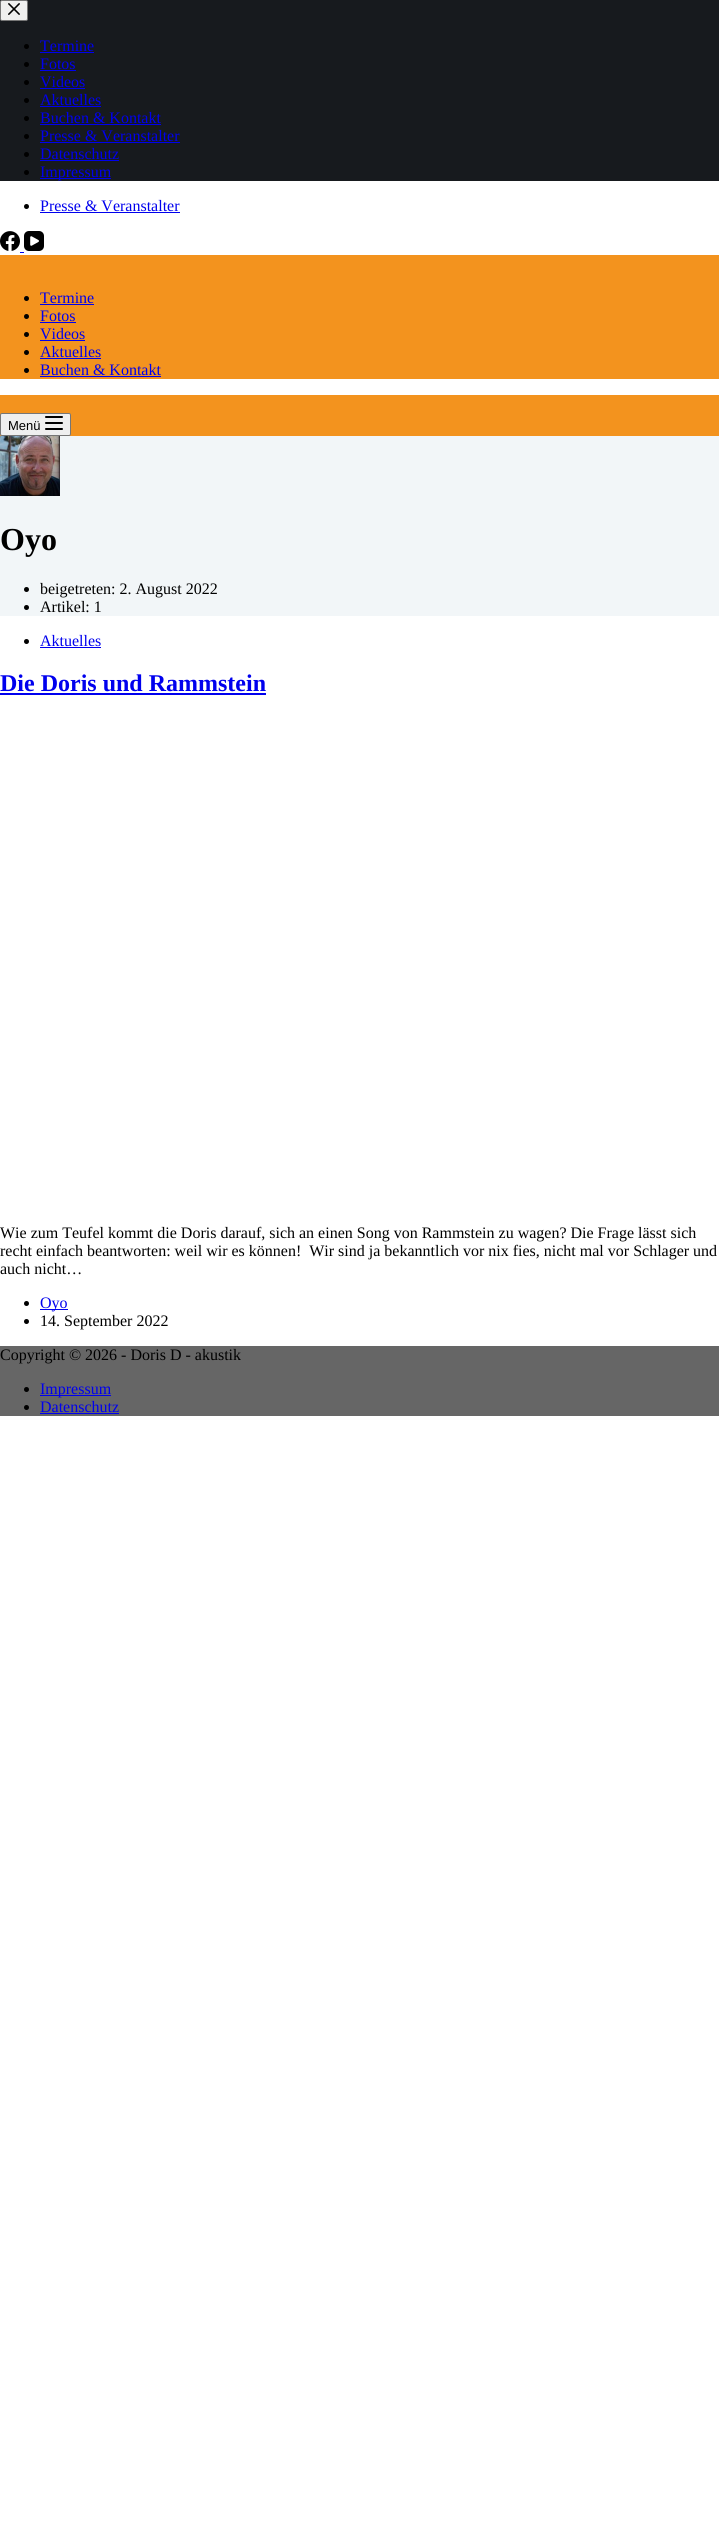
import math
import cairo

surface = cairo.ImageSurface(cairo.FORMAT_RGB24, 719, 2524)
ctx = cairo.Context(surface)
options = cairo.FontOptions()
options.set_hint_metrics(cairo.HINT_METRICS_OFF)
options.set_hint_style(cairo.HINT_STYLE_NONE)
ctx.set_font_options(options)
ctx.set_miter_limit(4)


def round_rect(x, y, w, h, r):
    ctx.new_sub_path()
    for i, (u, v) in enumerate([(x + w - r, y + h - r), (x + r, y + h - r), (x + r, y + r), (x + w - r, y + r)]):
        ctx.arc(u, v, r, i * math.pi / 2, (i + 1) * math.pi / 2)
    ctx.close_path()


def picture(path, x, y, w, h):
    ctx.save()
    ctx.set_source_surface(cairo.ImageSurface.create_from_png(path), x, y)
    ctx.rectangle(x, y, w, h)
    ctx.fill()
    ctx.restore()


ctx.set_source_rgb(1, 1, 1)
ctx.paint()
ctx.set_source_rgb(0.09, 0.102, 0.118)
ctx.rectangle(0, 0, 719, 181)
ctx.fill()
ctx.set_source_rgb(0.937, 0.937, 0.937)
round_rect(0.5, 0.5, 27, 20, 1.5)
ctx.fill_preserve()
ctx.set_source_rgb(0.463, 0.463, 0.463)
ctx.set_line_width(1)
ctx.stroke()
picture("img1.png", 8, 3, 12, 12)
ctx.set_source_rgb(0, 0, 0)
ctx.arc(26.5, 46.5, 2.5, 0, 2 * math.pi)
ctx.fill()
ctx.select_font_face("Liberation Serif")
ctx.set_font_size(16)
ctx.set_source_rgb(0, 0, 0.933)
ctx.move_to(40, 51)
ctx.show_text("Termine")
ctx.rectangle(40, 52, 54, 1)
ctx.fill()
ctx.set_source_rgb(0, 0, 0)
ctx.arc(26.5, 64.5, 2.5, 0, 2 * math.pi)
ctx.fill()
ctx.set_source_rgb(0, 0, 0.933)
ctx.move_to(40, 69)
ctx.show_text("Fotos")
ctx.rectangle(40, 70, 36, 1)
ctx.fill()
ctx.set_source_rgb(0, 0, 0)
ctx.arc(26.5, 82.5, 2.5, 0, 2 * math.pi)
ctx.fill()
ctx.set_source_rgb(0, 0, 0.933)
ctx.move_to(40, 87)
ctx.show_text("Videos")
ctx.rectangle(40, 88, 45, 1)
ctx.fill()
ctx.set_source_rgb(0, 0, 0)
ctx.arc(26.5, 100.5, 2.5, 0, 2 * math.pi)
ctx.fill()
ctx.set_source_rgb(0, 0, 0.933)
ctx.move_to(40, 105)
ctx.show_text("Aktuelles")
ctx.rectangle(40, 106, 61, 1)
ctx.fill()
ctx.set_source_rgb(0, 0, 0)
ctx.arc(26.5, 118.5, 2.5, 0, 2 * math.pi)
ctx.fill()
ctx.set_source_rgb(0, 0, 0.933)
ctx.move_to(40, 123)
ctx.show_text("Buchen & Kontakt")
ctx.rectangle(40, 124, 121, 1)
ctx.fill()
ctx.set_source_rgb(0, 0, 0)
ctx.arc(26.5, 136.5, 2.5, 0, 2 * math.pi)
ctx.fill()
ctx.set_source_rgb(0, 0, 0.933)
ctx.move_to(40, 141)
ctx.show_text("Presse & Veranstalter")
ctx.rectangle(40, 142, 140, 1)
ctx.fill()
ctx.set_source_rgb(0, 0, 0)
ctx.arc(26.5, 154.5, 2.5, 0, 2 * math.pi)
ctx.fill()
ctx.set_source_rgb(0, 0, 0.933)
ctx.move_to(40, 159)
ctx.show_text("Datenschutz")
ctx.rectangle(40, 160, 79, 1)
ctx.fill()
ctx.set_source_rgb(0, 0, 0)
ctx.arc(26.5, 172.5, 2.5, 0, 2 * math.pi)
ctx.fill()
ctx.set_source_rgb(0, 0, 0.933)
ctx.rectangle(40, 178, 71, 1)
ctx.fill()
ctx.move_to(40, 177)
ctx.show_text("Impressum")
ctx.set_source_rgb(0, 0, 0)
ctx.new_path()
ctx.arc(26.5, 206.5, 2.5, 0, 2 * math.pi)
ctx.fill()
ctx.set_source_rgb(0, 0, 0.933)
ctx.move_to(40, 211)
ctx.show_text("Presse & Veranstalter")
ctx.rectangle(40, 212, 140, 1)
ctx.fill()
picture("img2.png", 0, 231, 20, 20)
picture("img3.png", 24, 231, 20, 20)
ctx.rectangle(20, 252, 4, 1)
ctx.fill()
ctx.set_source_rgb(0.953, 0.576, 0.118)
ctx.rectangle(0, 255, 719, 124)
ctx.fill()
ctx.set_source_rgb(0, 0, 0)
ctx.arc(26.5, 298.5, 2.5, 0, 2 * math.pi)
ctx.fill()
ctx.set_source_rgb(0, 0, 0.933)
ctx.move_to(40, 303)
ctx.show_text("Termine")
ctx.rectangle(40, 304, 54, 1)
ctx.fill()
ctx.set_source_rgb(0, 0, 0)
ctx.arc(26.5, 316.5, 2.5, 0, 2 * math.pi)
ctx.fill()
ctx.set_source_rgb(0, 0, 0.933)
ctx.move_to(40, 321)
ctx.show_text("Fotos")
ctx.rectangle(40, 322, 36, 1)
ctx.fill()
ctx.set_source_rgb(0, 0, 0)
ctx.arc(26.5, 334.5, 2.5, 0, 2 * math.pi)
ctx.fill()
ctx.set_source_rgb(0, 0, 0.933)
ctx.move_to(40, 339)
ctx.show_text("Videos")
ctx.rectangle(40, 340, 45, 1)
ctx.fill()
ctx.set_source_rgb(0, 0, 0)
ctx.arc(26.5, 352.5, 2.5, 0, 2 * math.pi)
ctx.fill()
ctx.set_source_rgb(0, 0, 0.933)
ctx.move_to(40, 357)
ctx.show_text("Aktuelles")
ctx.rectangle(40, 358, 61, 1)
ctx.fill()
ctx.set_source_rgb(0, 0, 0)
ctx.arc(26.5, 370.5, 2.5, 0, 2 * math.pi)
ctx.fill()
ctx.set_source_rgb(0, 0, 0.933)
ctx.move_to(40, 375)
ctx.show_text("Buchen & Kontakt")
ctx.rectangle(40, 376, 121, 1)
ctx.fill()
ctx.set_source_rgb(0.953, 0.576, 0.118)
ctx.rectangle(0, 395, 719, 41)
ctx.fill()
ctx.set_source_rgb(0.937, 0.937, 0.937)
round_rect(0.5, 413.5, 70, 22, 1.5)
ctx.fill_preserve()
ctx.set_source_rgb(0.463, 0.463, 0.463)
ctx.stroke()
ctx.set_source_rgb(0, 0, 0)
round_rect(45, 416, 18, 2, 1)
ctx.fill()
ctx.select_font_face("Liberation Sans")
ctx.set_font_size(13)
ctx.move_to(8, 430)
ctx.show_text("Menü")
round_rect(45, 422, 18, 2, 1)
ctx.fill()
round_rect(45, 428, 18, 2, 1)
ctx.fill()
ctx.set_source_rgb(0.949, 0.961, 0.969)
ctx.rectangle(0, 436, 719, 180)
ctx.fill()
picture("img4.png", 0, 436, 60, 60)
ctx.select_font_face("Liberation Serif", cairo.FONT_SLANT_NORMAL, cairo.FONT_WEIGHT_BOLD)
ctx.set_font_size(32)
ctx.set_source_rgb(0, 0, 0)
ctx.move_to(0, 550)
ctx.show_text("Oyo")
ctx.new_path()
ctx.arc(26.5, 589.5, 2.5, 0, 2 * math.pi)
ctx.fill()
ctx.select_font_face("Liberation Serif")
ctx.set_font_size(16)
ctx.move_to(40, 594)
ctx.show_text("beigetreten: 2. August 2022")
ctx.new_path()
ctx.arc(26.5, 607.5, 2.5, 0, 2 * math.pi)
ctx.fill()
ctx.move_to(40, 612)
ctx.show_text("Artikel: 1")
ctx.new_path()
ctx.arc(26.5, 641.5, 2.5, 0, 2 * math.pi)
ctx.fill()
ctx.set_source_rgb(0, 0, 0.933)
ctx.move_to(40, 646)
ctx.show_text("Aktuelles")
ctx.rectangle(40, 647, 61, 1)
ctx.fill()
ctx.select_font_face("Liberation Serif", cairo.FONT_SLANT_NORMAL, cairo.FONT_WEIGHT_BOLD)
ctx.set_font_size(24)
ctx.move_to(0, 691)
ctx.show_text("Die Doris und Rammstein")
ctx.rectangle(0, 693, 266, 2)
ctx.fill()
ctx.select_font_face("Liberation Serif")
ctx.set_font_size(16)
ctx.set_source_rgb(0, 0, 0)
ctx.move_to(0, 1238)
ctx.show_text("Wie zum Teufel kommt die Doris darauf, sich an einen Song von Rammstein zu wagen? Die Frage lässt sich")
ctx.move_to(0, 1256)
ctx.show_text("recht einfach beantworten: weil wir es können!  Wir sind ja bekanntlich vor nix fies, nicht mal vor Schlager und")
ctx.move_to(0, 1274)
ctx.show_text("auch nicht…")
ctx.new_path()
ctx.arc(26.5, 1303.5, 2.5, 0, 2 * math.pi)
ctx.fill()
ctx.set_source_rgb(0, 0, 0.933)
ctx.rectangle(40, 1309, 28, 1)
ctx.fill()
ctx.move_to(40, 1308)
ctx.show_text("Oyo")
ctx.set_source_rgb(0, 0, 0)
ctx.new_path()
ctx.arc(26.5, 1321.5, 2.5, 0, 2 * math.pi)
ctx.fill()
ctx.move_to(40, 1326)
ctx.show_text("14. September 2022")
ctx.set_source_rgb(0.4, 0.4, 0.4)
ctx.rectangle(0, 1346, 719, 70)
ctx.fill()
ctx.set_source_rgb(0, 0, 0)
ctx.move_to(0, 1360)
ctx.show_text("Copyright © 2026 - Doris D - akustik")
ctx.new_path()
ctx.arc(26.5, 1389.5, 2.5, 0, 2 * math.pi)
ctx.fill()
ctx.set_source_rgb(0, 0, 0.933)
ctx.rectangle(40, 1395, 71, 1)
ctx.fill()
ctx.move_to(40, 1394)
ctx.show_text("Impressum")
ctx.set_source_rgb(0, 0, 0)
ctx.new_path()
ctx.arc(26.5, 1407.5, 2.5, 0, 2 * math.pi)
ctx.fill()
ctx.set_source_rgb(0, 0, 0.933)
ctx.move_to(40, 1412)
ctx.show_text("Datenschutz")
ctx.rectangle(40, 1413, 79, 1)
ctx.fill()
surface.write_to_png("page.png")
